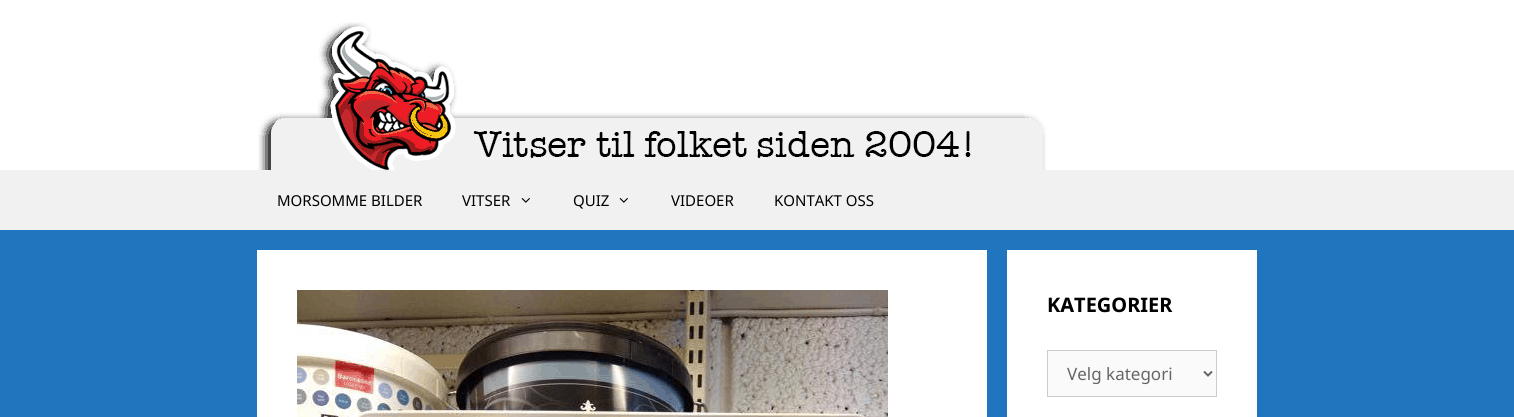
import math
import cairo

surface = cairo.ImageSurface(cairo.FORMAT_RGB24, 1514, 417)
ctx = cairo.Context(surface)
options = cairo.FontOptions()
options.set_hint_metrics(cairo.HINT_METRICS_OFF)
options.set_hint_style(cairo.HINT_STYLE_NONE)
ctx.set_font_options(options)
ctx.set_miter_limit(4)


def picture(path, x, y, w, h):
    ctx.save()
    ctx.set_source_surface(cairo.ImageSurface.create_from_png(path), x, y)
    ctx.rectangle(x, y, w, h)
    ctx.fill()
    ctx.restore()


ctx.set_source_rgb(0.129, 0.459, 0.745)
ctx.paint()
ctx.set_source_rgb(1, 1, 1)
ctx.rectangle(0, 0, 1514, 170)
ctx.fill()
picture("img1.png", 258, 22, 788, 148)
ctx.set_source_rgb(0.945, 0.945, 0.945)
ctx.rectangle(0, 170, 1514, 60)
ctx.fill()
ctx.select_font_face("Noto Sans")
ctx.set_font_size(15)
ctx.set_source_rgb(0, 0, 0)
ctx.move_to(277, 206)
ctx.show_text("MORSOMME BILDER")
ctx.move_to(462, 206)
ctx.show_text("VITSER")
picture("img2.png", 521, 198, 9, 5)
ctx.move_to(573, 206)
ctx.show_text("QUIZ")
picture("img2.png", 619, 198, 9, 5)
ctx.move_to(671, 206)
ctx.show_text("VIDEOER")
ctx.move_to(774, 206)
ctx.show_text("KONTAKT OSS")
ctx.set_source_rgb(1, 1, 1)
ctx.rectangle(257, 250, 730, 167)
ctx.fill()
picture("img3.png", 297, 290, 591, 127)
ctx.rectangle(1007, 250, 250, 167)
ctx.fill()
ctx.select_font_face("Noto Sans", cairo.FONT_SLANT_NORMAL, cairo.FONT_WEIGHT_BOLD)
ctx.set_font_size(20)
ctx.set_source_rgb(0, 0, 0)
ctx.move_to(1047, 312)
ctx.show_text("KATEGORIER")
ctx.set_source_rgb(0.98, 0.98, 0.98)
ctx.rectangle(1047.5, 350.5, 169, 46)
ctx.fill_preserve()
ctx.set_source_rgb(0.8, 0.8, 0.8)
ctx.set_line_width(1)
ctx.stroke()
ctx.new_path()
ctx.move_to(1204, 371.5)
ctx.line_to(1208, 375.5)
ctx.line_to(1212, 371.5)
ctx.set_source_rgb(0.4, 0.4, 0.4)
ctx.set_line_width(2)
ctx.stroke()
ctx.select_font_face("Noto Sans")
ctx.set_font_size(17)
ctx.move_to(1067, 380)
ctx.show_text("Velg kategori")
surface.write_to_png("page.png")
